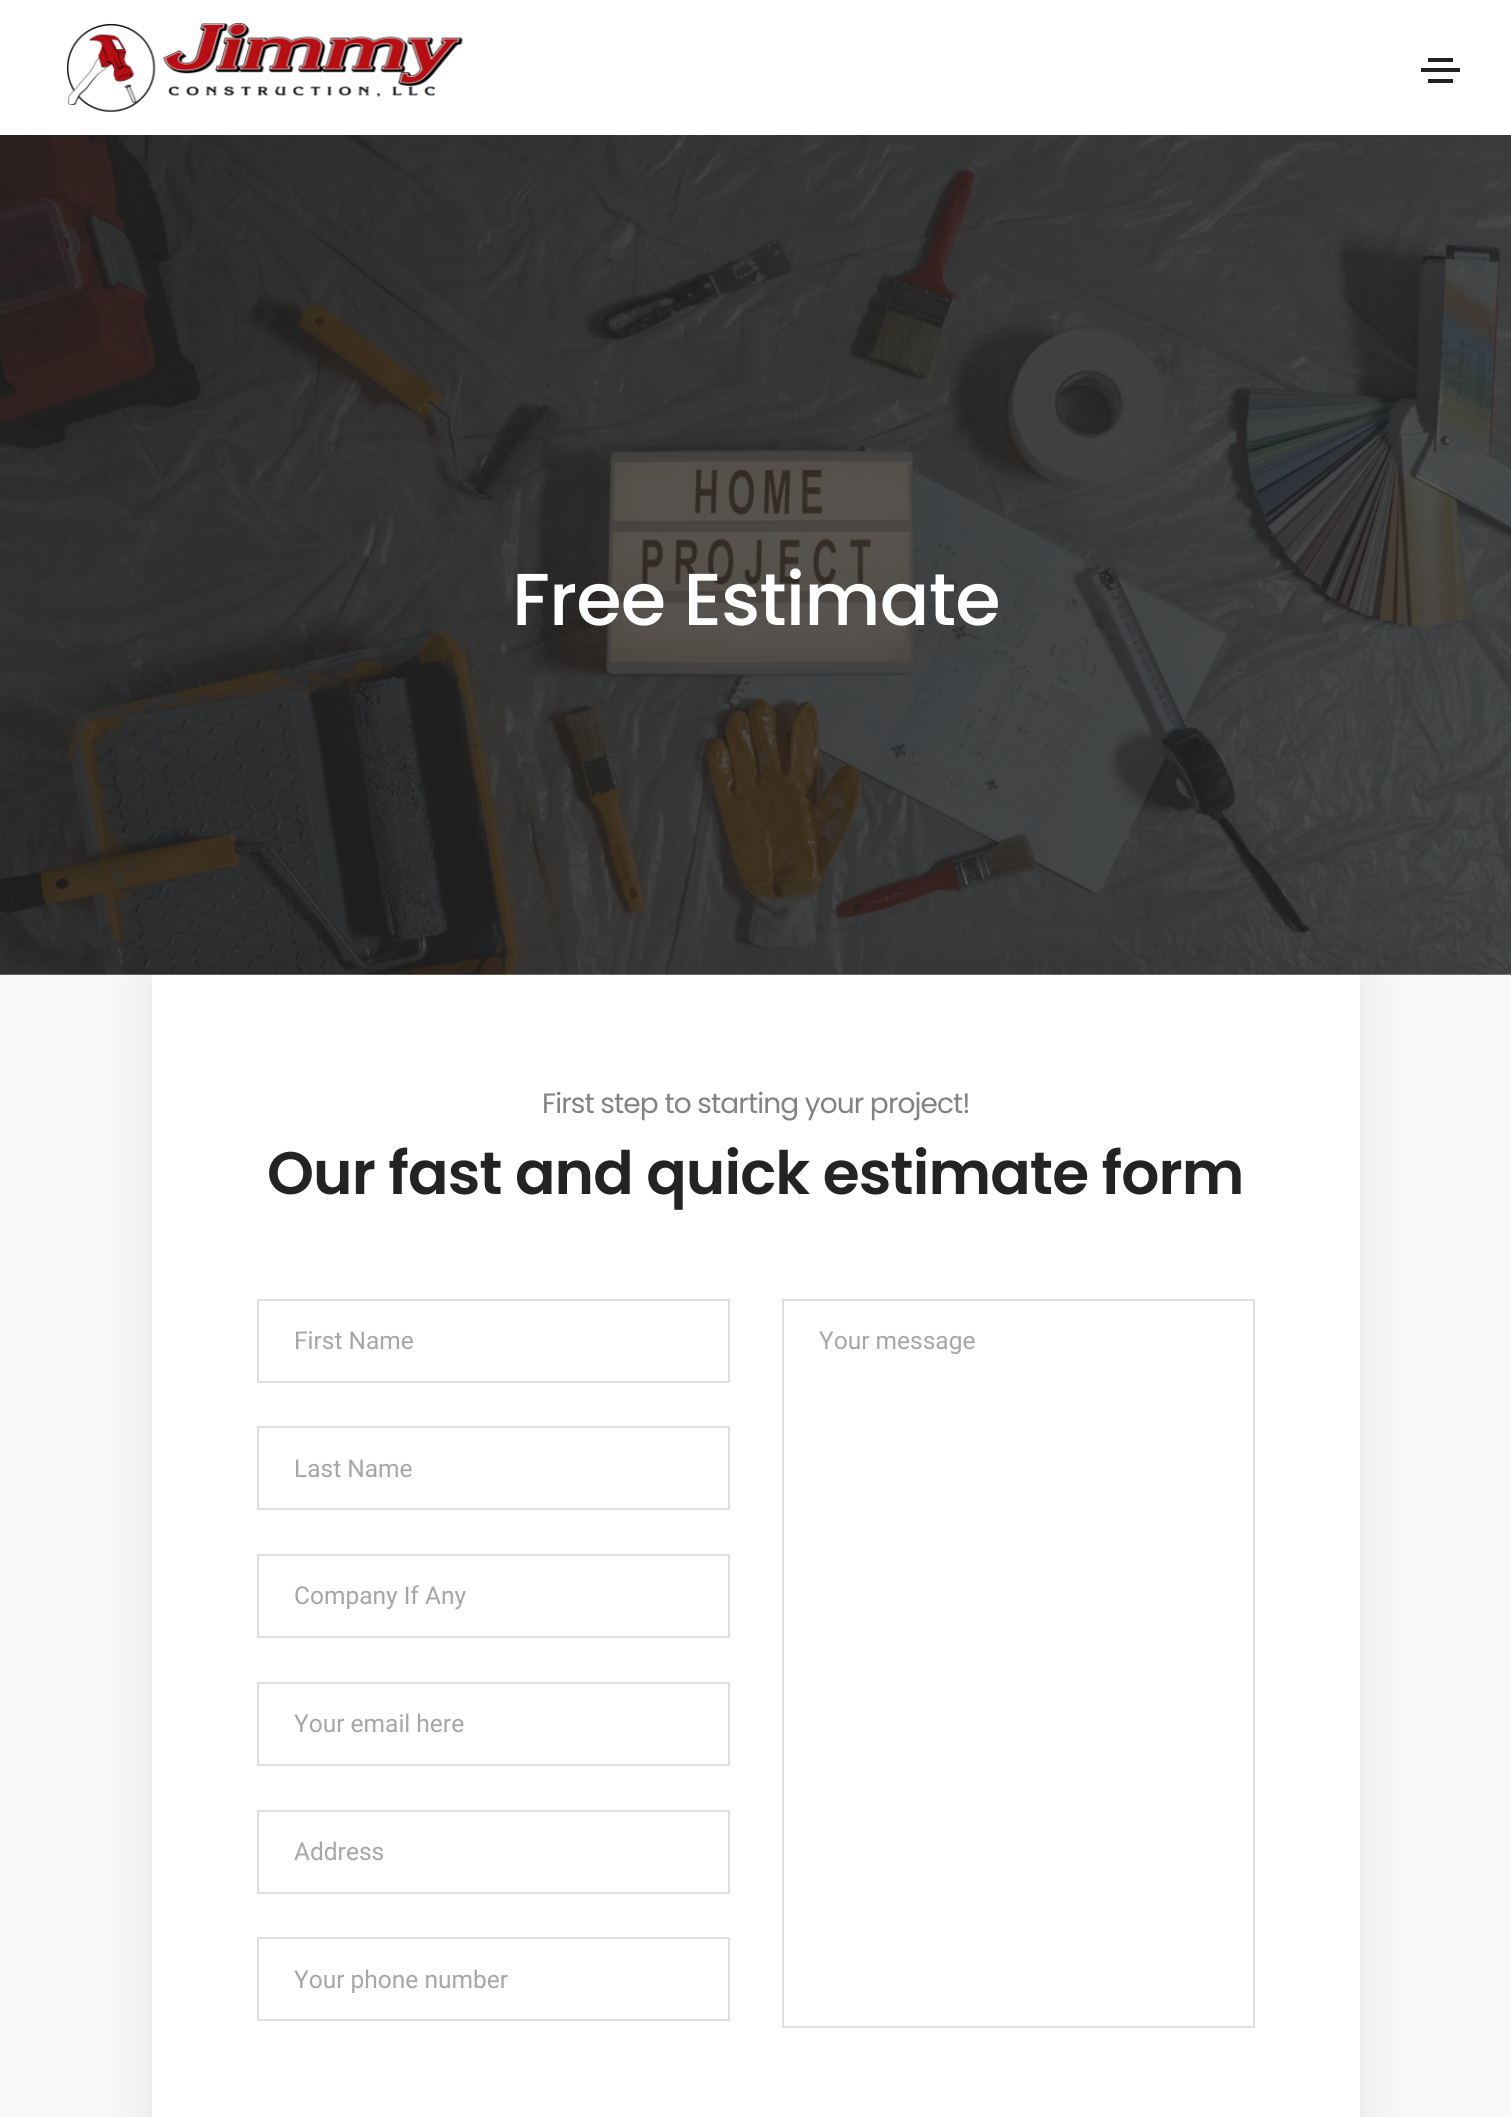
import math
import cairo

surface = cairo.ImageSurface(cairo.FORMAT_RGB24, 1511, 2117)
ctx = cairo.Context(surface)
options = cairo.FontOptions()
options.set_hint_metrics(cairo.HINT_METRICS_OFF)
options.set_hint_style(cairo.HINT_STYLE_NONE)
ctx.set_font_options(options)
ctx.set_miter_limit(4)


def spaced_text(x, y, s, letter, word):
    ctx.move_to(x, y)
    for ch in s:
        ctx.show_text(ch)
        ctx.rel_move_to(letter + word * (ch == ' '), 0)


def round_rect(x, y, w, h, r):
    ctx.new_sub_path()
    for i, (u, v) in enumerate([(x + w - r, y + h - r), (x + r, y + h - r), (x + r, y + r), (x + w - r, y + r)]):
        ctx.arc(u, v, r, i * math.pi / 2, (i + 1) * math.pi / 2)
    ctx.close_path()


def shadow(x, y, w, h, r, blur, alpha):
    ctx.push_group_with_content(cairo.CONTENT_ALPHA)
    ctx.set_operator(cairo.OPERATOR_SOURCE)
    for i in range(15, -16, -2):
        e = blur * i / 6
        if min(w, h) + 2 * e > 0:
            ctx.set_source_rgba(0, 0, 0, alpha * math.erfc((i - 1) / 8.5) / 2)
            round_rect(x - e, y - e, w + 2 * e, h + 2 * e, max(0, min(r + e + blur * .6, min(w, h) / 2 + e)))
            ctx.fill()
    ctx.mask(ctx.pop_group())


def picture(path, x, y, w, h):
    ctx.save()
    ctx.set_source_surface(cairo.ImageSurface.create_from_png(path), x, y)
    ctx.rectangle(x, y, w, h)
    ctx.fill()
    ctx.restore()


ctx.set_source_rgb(1, 1, 1)
ctx.paint()
picture("img1.png", 67, 23, 396, 89)
ctx.set_source_rgb(0.137, 0.137, 0.137)
ctx.rectangle(1428, 58, 25, 4)
ctx.fill()
ctx.rectangle(1421, 68, 39, 4)
ctx.fill()
ctx.rectangle(1428, 79, 25, 4)
ctx.fill()
picture("img2.png", 0, 135, 1511, 840)
ctx.select_font_face("Poppins Medium")
ctx.set_font_size(73.5)
ctx.set_source_rgb(1, 1, 1)
spaced_text(512, 625, "Free Estimate", -0.9, 0)
ctx.set_source_rgb(0.969, 0.969, 0.969)
ctx.rectangle(0, 975, 1511, 1142)
ctx.fill()
ctx.set_source_rgb(0, 0, 0)
shadow(152, 975, 1208, 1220, 0, 26, 0.08)
ctx.set_source_rgb(1, 1, 1)
ctx.rectangle(152, 975, 1208, 1142)
ctx.fill()
ctx.select_font_face("Poppins")
ctx.set_font_size(28)
ctx.set_source_rgb(0.51, 0.51, 0.51)
spaced_text(542, 1113, "First step to starting your project!", -0.9, 0)
ctx.select_font_face("Poppins SemiBold")
ctx.set_font_size(59.8)
ctx.set_source_rgb(0.137, 0.137, 0.137)
spaced_text(267, 1194, "Our fast and quick estimate form", -0.9, 0)
ctx.rectangle(258, 1300, 471, 82)
ctx.set_source_rgb(0.875, 0.875, 0.875)
ctx.stroke()
ctx.select_font_face("Roboto")
ctx.set_font_size(24.5)
ctx.set_source_rgb(0.651, 0.651, 0.651)
ctx.move_to(294, 1349)
ctx.show_text("First Name")
ctx.rectangle(258, 1427, 471, 82)
ctx.set_source_rgb(0.875, 0.875, 0.875)
ctx.stroke()
ctx.set_source_rgb(0.651, 0.651, 0.651)
ctx.move_to(294, 1477)
ctx.show_text("Last Name")
ctx.rectangle(258, 1555, 471, 82)
ctx.set_source_rgb(0.875, 0.875, 0.875)
ctx.stroke()
ctx.set_source_rgb(0.651, 0.651, 0.651)
ctx.move_to(294, 1604)
ctx.show_text("Company If Any")
ctx.rectangle(258, 1683, 471, 82)
ctx.set_source_rgb(0.875, 0.875, 0.875)
ctx.stroke()
ctx.set_source_rgb(0.651, 0.651, 0.651)
ctx.move_to(294, 1732)
ctx.show_text("Your email here")
ctx.rectangle(258, 1811, 471, 82)
ctx.set_source_rgb(0.875, 0.875, 0.875)
ctx.stroke()
ctx.set_source_rgb(0.651, 0.651, 0.651)
ctx.move_to(294, 1860)
ctx.show_text("Address")
ctx.rectangle(258, 1938, 471, 82)
ctx.set_source_rgb(0.875, 0.875, 0.875)
ctx.stroke()
ctx.set_source_rgb(0.651, 0.651, 0.651)
ctx.move_to(294, 1988)
ctx.show_text("Your phone number")
ctx.rectangle(783, 1300, 471, 727)
ctx.set_source_rgb(0.875, 0.875, 0.875)
ctx.stroke()
ctx.set_source_rgb(0.651, 0.651, 0.651)
ctx.move_to(819, 1349)
ctx.show_text("Your message")
surface.write_to_png("page.png")
